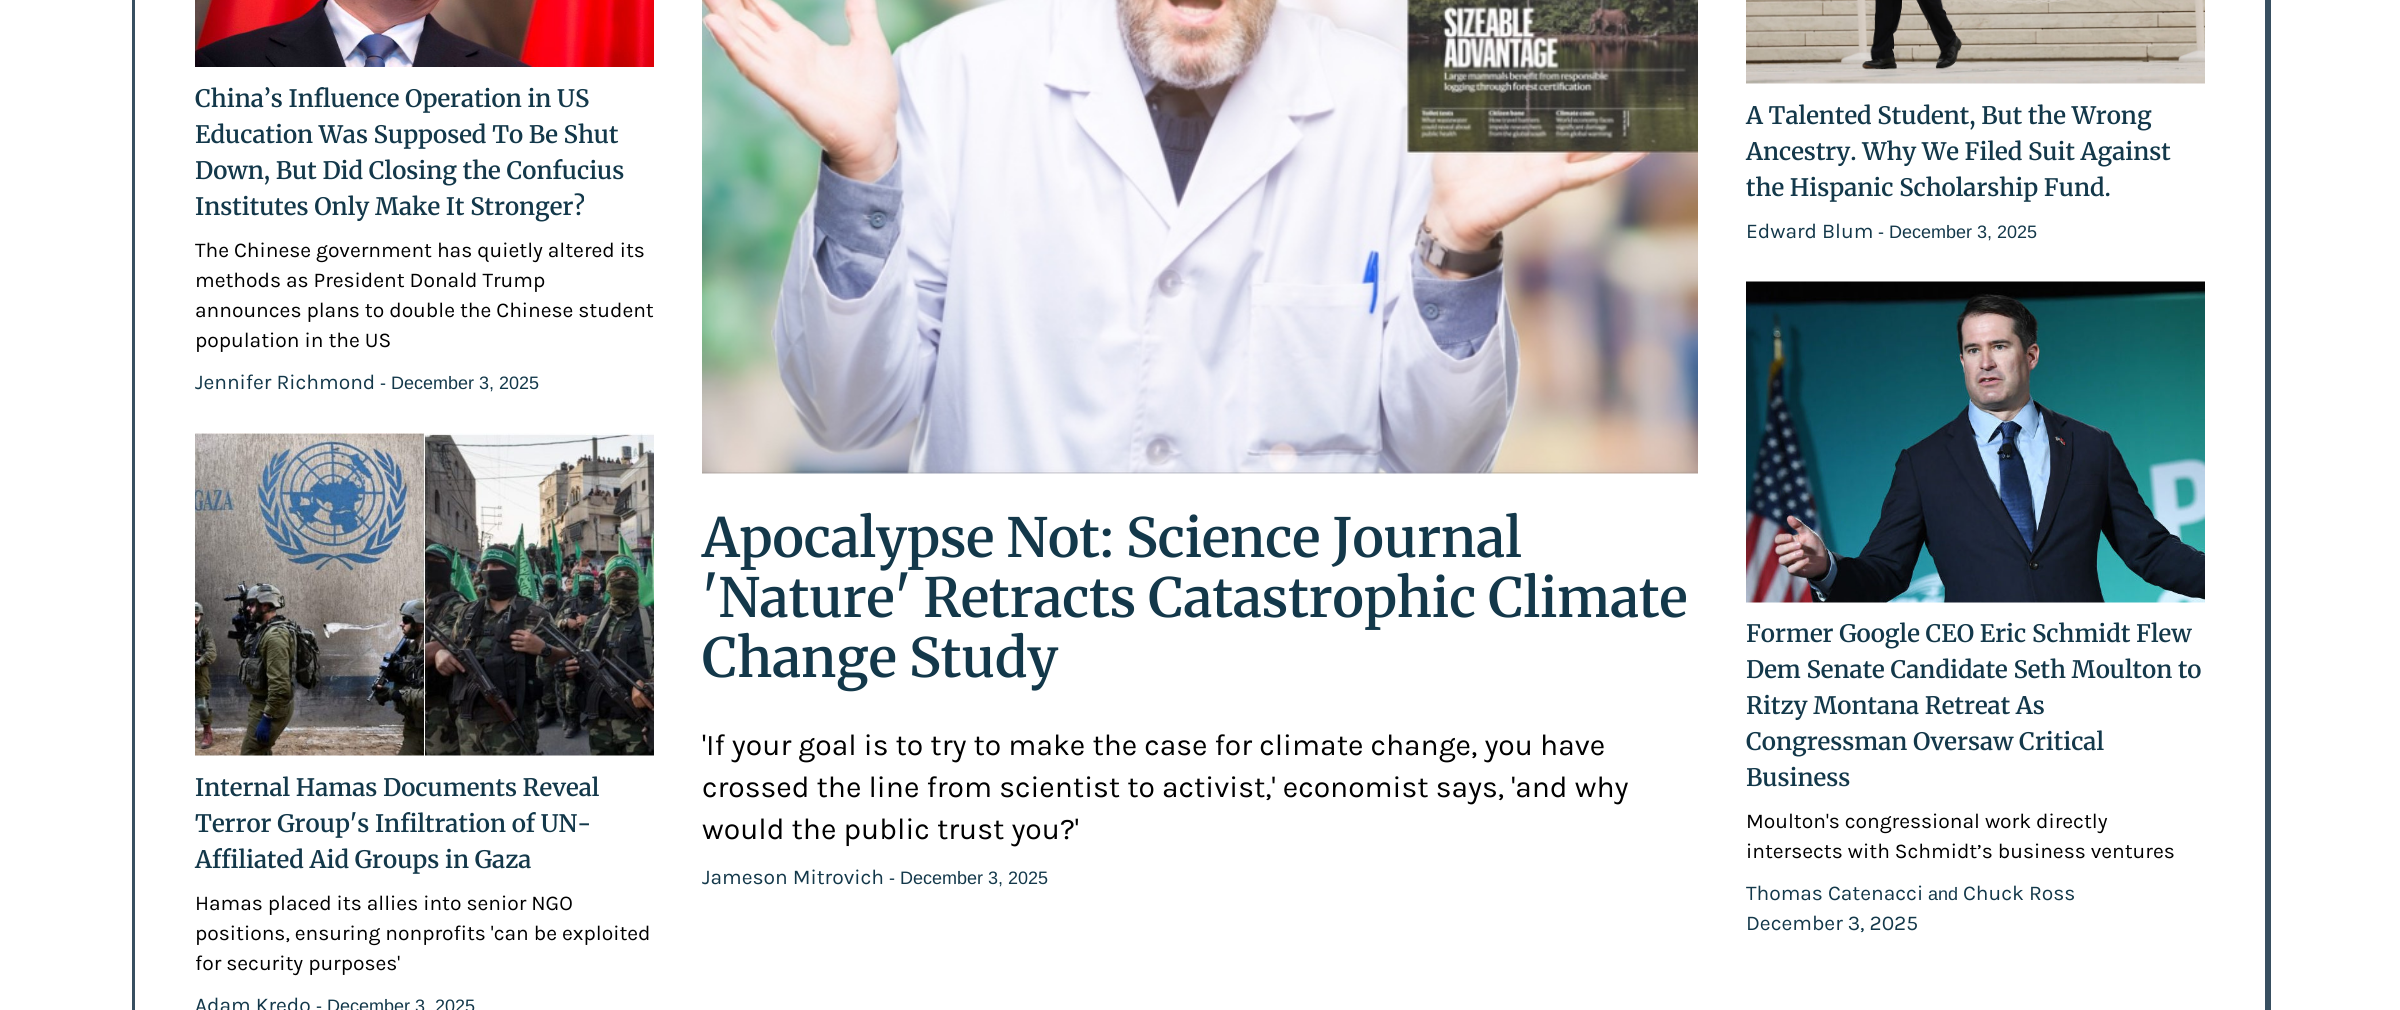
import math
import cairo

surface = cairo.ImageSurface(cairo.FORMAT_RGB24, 2400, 1010)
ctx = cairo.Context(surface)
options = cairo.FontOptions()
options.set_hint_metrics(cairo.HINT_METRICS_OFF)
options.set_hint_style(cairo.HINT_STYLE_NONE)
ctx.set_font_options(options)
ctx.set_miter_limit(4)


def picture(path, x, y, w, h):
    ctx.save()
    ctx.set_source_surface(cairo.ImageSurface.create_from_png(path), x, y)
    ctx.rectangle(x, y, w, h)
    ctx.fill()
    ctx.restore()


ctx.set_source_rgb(1, 1, 1)
ctx.paint()
ctx.set_source_rgb(0.22, 0.31, 0.38)
ctx.new_path()
ctx.move_to(135, 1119)
ctx.line_to(135, 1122)
ctx.line_to(2271, 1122)
ctx.line_to(2271, -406)
ctx.line_to(2268, -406)
ctx.line_to(2268, 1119)
ctx.close_path()
ctx.fill()
ctx.rectangle(133.5, -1.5, 2133, 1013)
ctx.set_line_width(3)
ctx.stroke()
picture("img1.png", 195, 0, 459, 67)
ctx.select_font_face("Merriweather SemiBold")
ctx.set_font_size(24)
ctx.set_source_rgb(0.075, 0.22, 0.29)
ctx.move_to(195, 107)
ctx.show_text("China’s Influence Operation in US")
ctx.move_to(195, 143)
ctx.show_text("Education Was Supposed To Be Shut")
ctx.move_to(195, 179)
ctx.show_text("Down, But Did Closing the Confucius")
ctx.move_to(195, 215)
ctx.show_text("Institutes Only Make It Stronger?")
ctx.select_font_face("Karla")
ctx.set_font_size(21)
ctx.set_source_rgb(0, 0, 0)
ctx.move_to(195, 257)
ctx.show_text("The Chinese government has quietly altered its")
ctx.move_to(195, 287)
ctx.show_text("methods as President Donald Trump")
ctx.move_to(195, 317)
ctx.show_text("announces plans to double the Chinese student")
ctx.move_to(195, 347)
ctx.show_text("population in the US")
ctx.set_source_rgb(0.075, 0.22, 0.29)
ctx.move_to(195, 389)
ctx.show_text("Jennifer Richmond")
ctx.select_font_face("Liberation Sans")
ctx.set_font_size(18)
ctx.move_to(380, 389)
ctx.show_text("- December 3, 2025")
picture("img2.png", 195, 433, 459, 323)
ctx.select_font_face("Merriweather SemiBold")
ctx.set_font_size(24)
ctx.move_to(195, 796)
ctx.show_text("Internal Hamas Documents Reveal")
ctx.move_to(195, 832)
ctx.show_text("Terror Group's Infiltration of UN-")
ctx.move_to(195, 868)
ctx.show_text("Affiliated Aid Groups in Gaza")
ctx.select_font_face("Karla")
ctx.set_font_size(21)
ctx.set_source_rgb(0, 0, 0)
ctx.move_to(195, 910)
ctx.show_text("Hamas placed its allies into senior NGO")
ctx.move_to(195, 940)
ctx.show_text("positions, ensuring nonprofits 'can be exploited")
ctx.move_to(195, 970)
ctx.show_text("for security purposes'")
ctx.set_source_rgb(0.075, 0.22, 0.29)
ctx.move_to(195, 1012)
ctx.show_text("Adam Kredo")
ctx.select_font_face("Liberation Sans")
ctx.set_font_size(18)
ctx.move_to(316, 1012)
ctx.show_text("- December 3, 2025")
picture("img3.png", 702, 0, 996, 474)
ctx.select_font_face("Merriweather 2 SemiBold")
ctx.set_font_size(54)
ctx.move_to(702, 557)
ctx.show_text("Apocalypse Not: Science Journal")
ctx.move_to(702, 617)
ctx.show_text("'Nature' Retracts Catastrophic Climate")
ctx.move_to(702, 677)
ctx.show_text("Change Study")
ctx.select_font_face("Karla")
ctx.set_font_size(30)
ctx.set_source_rgb(0, 0, 0)
ctx.move_to(702, 755)
ctx.show_text("'If your goal is to try to make the case for climate change, you have")
ctx.move_to(702, 797)
ctx.show_text("crossed the line from scientist to activist,' economist says, 'and why")
ctx.move_to(702, 839)
ctx.show_text("would the public trust you?'")
ctx.set_font_size(21)
ctx.set_source_rgb(0.075, 0.22, 0.29)
ctx.move_to(702, 884)
ctx.show_text("Jameson Mitrovich")
ctx.select_font_face("Liberation Sans")
ctx.set_font_size(18)
ctx.move_to(889, 884)
ctx.show_text("- December 3, 2025")
picture("img4.png", 1746, 0, 459, 84)
ctx.select_font_face("Merriweather SemiBold")
ctx.set_font_size(24)
ctx.move_to(1746, 124)
ctx.show_text("A Talented Student, But the Wrong")
ctx.move_to(1746, 160)
ctx.show_text("Ancestry. Why We Filed Suit Against")
ctx.move_to(1746, 196)
ctx.show_text("the Hispanic Scholarship Fund.")
ctx.select_font_face("Karla")
ctx.set_font_size(21)
ctx.move_to(1746, 238)
ctx.show_text("Edward Blum")
ctx.select_font_face("Liberation Sans")
ctx.set_font_size(18)
ctx.move_to(1878, 238)
ctx.show_text("- December 3, 2025")
picture("img5.png", 1746, 281, 459, 322)
ctx.select_font_face("Merriweather SemiBold")
ctx.set_font_size(24)
ctx.move_to(1746, 642)
ctx.show_text("Former Google CEO Eric Schmidt Flew")
ctx.move_to(1746, 678)
ctx.show_text("Dem Senate Candidate Seth Moulton to")
ctx.move_to(1746, 714)
ctx.show_text("Ritzy Montana Retreat As")
ctx.move_to(1746, 750)
ctx.show_text("Congressman Oversaw Critical")
ctx.move_to(1746, 786)
ctx.show_text("Business")
ctx.select_font_face("Karla")
ctx.set_font_size(21)
ctx.set_source_rgb(0, 0, 0)
ctx.move_to(1746, 828)
ctx.show_text("Moulton's congressional work directly")
ctx.move_to(1746, 858)
ctx.show_text("intersects with Schmidt’s business ventures")
ctx.set_source_rgb(0.075, 0.22, 0.29)
ctx.move_to(1746, 900)
ctx.show_text("Thomas Catenacci")
ctx.select_font_face("Liberation Sans")
ctx.set_font_size(18)
ctx.move_to(1928, 900)
ctx.show_text("and")
ctx.select_font_face("Karla")
ctx.set_font_size(21)
ctx.move_to(1963, 900)
ctx.show_text("Chuck Ross")
ctx.move_to(1746, 930)
ctx.show_text("December 3, 2025")
surface.write_to_png("page.png")
